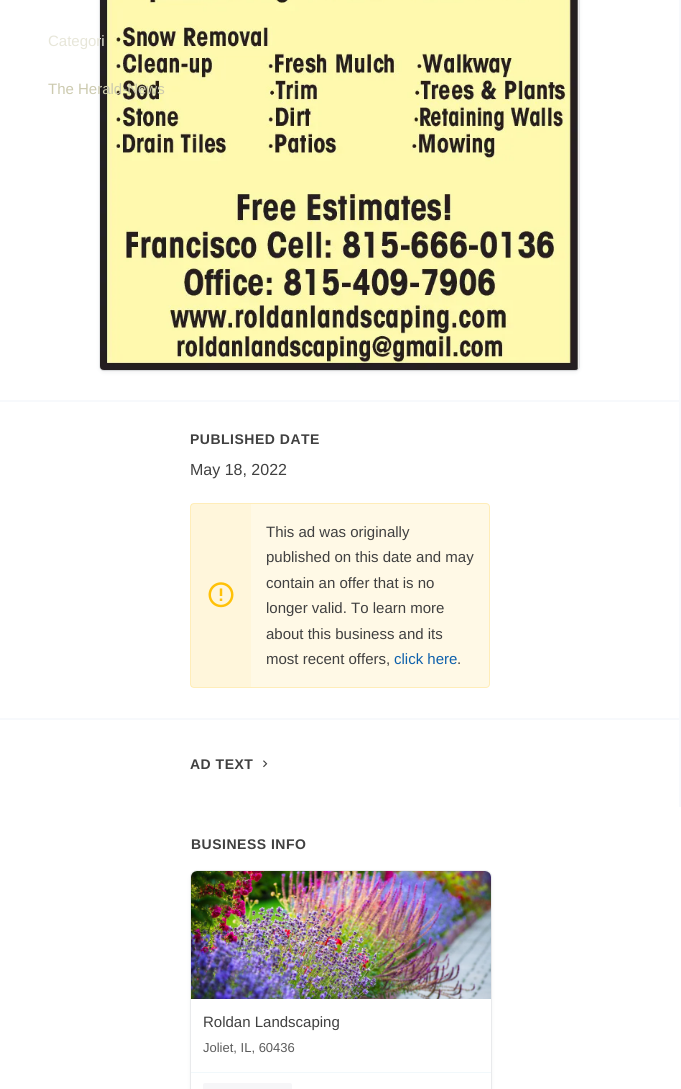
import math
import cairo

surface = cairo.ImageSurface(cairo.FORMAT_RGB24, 681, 1089)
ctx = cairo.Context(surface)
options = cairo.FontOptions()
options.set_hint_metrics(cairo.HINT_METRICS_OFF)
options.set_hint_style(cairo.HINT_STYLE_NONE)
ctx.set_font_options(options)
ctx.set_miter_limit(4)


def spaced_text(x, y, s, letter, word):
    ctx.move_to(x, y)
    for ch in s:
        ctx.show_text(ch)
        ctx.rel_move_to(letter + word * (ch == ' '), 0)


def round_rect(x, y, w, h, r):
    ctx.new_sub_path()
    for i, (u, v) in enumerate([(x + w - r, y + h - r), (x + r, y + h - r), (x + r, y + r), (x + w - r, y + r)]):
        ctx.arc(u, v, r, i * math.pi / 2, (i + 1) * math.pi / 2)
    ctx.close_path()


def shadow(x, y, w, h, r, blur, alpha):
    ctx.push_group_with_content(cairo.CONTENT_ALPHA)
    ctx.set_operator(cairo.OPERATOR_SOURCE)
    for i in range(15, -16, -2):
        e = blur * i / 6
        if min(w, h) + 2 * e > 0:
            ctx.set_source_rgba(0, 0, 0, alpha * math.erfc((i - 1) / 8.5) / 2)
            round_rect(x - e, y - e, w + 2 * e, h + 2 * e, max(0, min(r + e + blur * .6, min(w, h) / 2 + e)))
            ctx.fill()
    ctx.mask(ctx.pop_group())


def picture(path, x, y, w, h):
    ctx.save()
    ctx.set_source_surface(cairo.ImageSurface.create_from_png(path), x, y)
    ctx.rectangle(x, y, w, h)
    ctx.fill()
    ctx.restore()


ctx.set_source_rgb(1, 1, 1)
ctx.paint()
ctx.set_source_rgb(0.235, 0.259, 0.341)
shadow(100, -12, 479, 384, 4, 2.5, 0.08)
round_rect(99.5, -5.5, 480, 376, 4.5)
ctx.set_source_rgba(0.235, 0.259, 0.341, 0.08)
ctx.set_line_width(1)
ctx.stroke()
ctx.set_source_rgb(0, 0, 0)
shadow(100, -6, 479, 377, 4, 0.5, 0.08)
picture("img1.png", 100, 0, 479, 370)
ctx.select_font_face("Liberation Sans")
ctx.set_font_size(15)
ctx.set_source_rgb(0.906, 0.902, 0.851)
ctx.move_to(48, 46)
ctx.show_text("Categori")
ctx.set_source_rgb(0.8, 0.792, 0.686)
ctx.move_to(48, 94)
ctx.show_text("The Herald-News")
ctx.set_source_rgb(0.965, 0.976, 0.988)
ctx.rectangle(679, 0, 2, 807)
ctx.fill()
ctx.rectangle(0, 400, 679, 2)
ctx.fill()
ctx.rectangle(0, 718, 679, 2)
ctx.fill()
ctx.select_font_face("Liberation Sans", cairo.FONT_SLANT_NORMAL, cairo.FONT_WEIGHT_BOLD)
ctx.set_font_size(14)
ctx.set_source_rgb(0.251, 0.251, 0.251)
spaced_text(190, 444, "PUBLISHED DATE", 0.5, 0)
ctx.select_font_face("Liberation Sans")
ctx.set_font_size(16)
ctx.move_to(190, 475)
ctx.show_text("May 18, 2022")
ctx.set_source_rgb(1, 0.976, 0.902)
round_rect(190, 503, 300, 185, 4)
ctx.fill()
round_rect(190.5, 503.5, 299, 184, 3.5)
ctx.set_source_rgba(1, 0.757, 0.027, 0.2)
ctx.stroke()
picture("img2.png", 208, 582, 26, 26)
ctx.set_source_rgba(1, 0.757, 0.027, 0.05)
ctx.rectangle(191, 504, 60, 183)
ctx.fill()
ctx.set_font_size(15)
ctx.set_source_rgb(0.251, 0.251, 0.251)
ctx.move_to(266, 537)
ctx.show_text("This ad was originally")
ctx.move_to(266, 562)
ctx.show_text("published on this date and may")
ctx.move_to(266, 588)
ctx.show_text("contain an offer that is no")
ctx.move_to(266, 613)
ctx.show_text("longer valid. To learn more")
ctx.move_to(266, 639)
ctx.show_text("about this business and its")
ctx.move_to(266, 664)
ctx.show_text("most recent offers,")
ctx.set_source_rgb(0.051, 0.376, 0.671)
ctx.move_to(394, 664)
ctx.show_text("click here")
ctx.set_source_rgb(0.251, 0.251, 0.251)
ctx.move_to(457, 664)
ctx.show_text(".")
ctx.select_font_face("Liberation Sans", cairo.FONT_SLANT_NORMAL, cairo.FONT_WEIGHT_BOLD)
ctx.set_font_size(14)
spaced_text(190, 769, "AD TEXT", 0.5, 0)
picture("img3.png", 263, 760, 5, 8)
spaced_text(191, 849, "BUSINESS INFO", 0.5, 0)
ctx.set_source_rgb(0.235, 0.259, 0.341)
shadow(191, 873, 300, 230, 6, 2.5, 0.08)
round_rect(190.5, 870.5, 301, 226, 6.5)
ctx.set_source_rgba(0.235, 0.259, 0.341, 0.08)
ctx.stroke()
ctx.set_source_rgb(1, 1, 1)
round_rect(191, 871, 300, 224, 6)
ctx.fill()
picture("img4.png", 191, 871, 300, 128)
ctx.select_font_face("Liberation Sans")
ctx.set_font_size(15)
ctx.set_source_rgb(0.251, 0.251, 0.251)
ctx.move_to(203, 1027)
ctx.show_text("Roldan Landscaping")
ctx.set_font_size(13)
ctx.set_source_rgb(0.361, 0.361, 0.361)
ctx.move_to(203, 1052)
ctx.show_text("Joliet, IL, 60436")
ctx.set_source_rgb(0.945, 0.969, 0.984)
ctx.rectangle(191, 1072, 300, 1)
ctx.fill()
ctx.set_source_rgb(0.961, 0.961, 0.969)
round_rect(203, 1083, 89, 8, 2)
ctx.fill()
surface.write_to_png("page.png")
